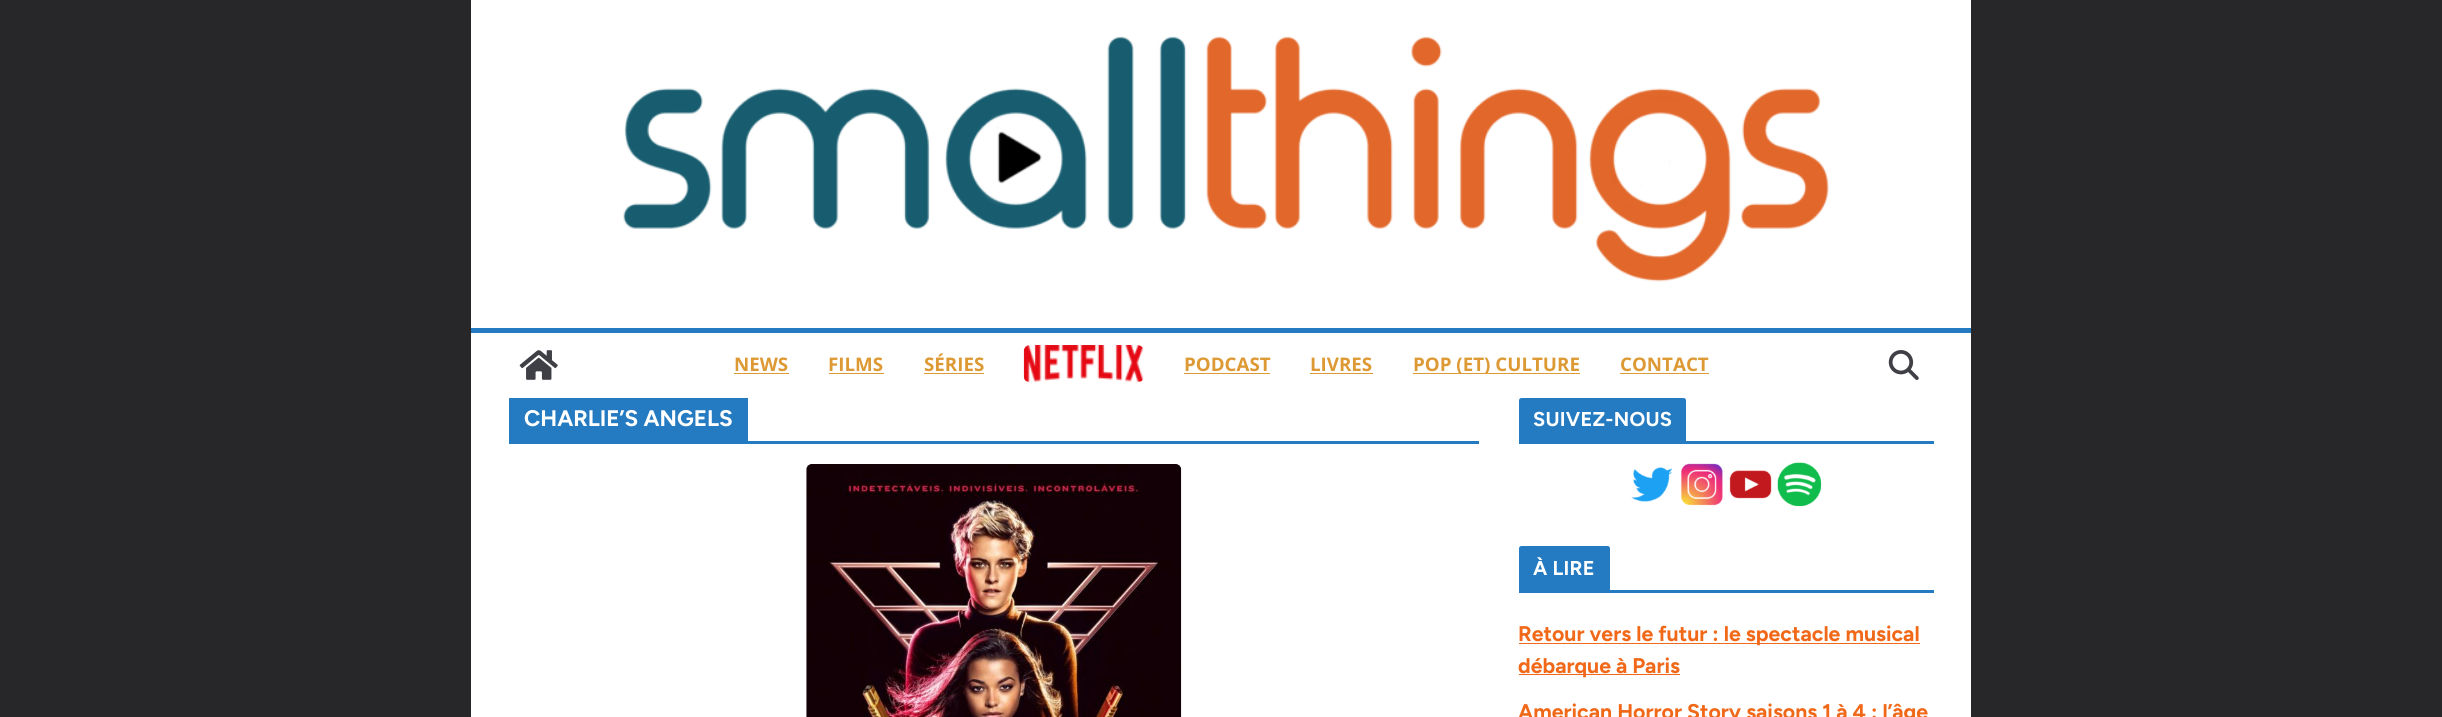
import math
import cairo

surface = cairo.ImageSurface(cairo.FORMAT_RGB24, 2442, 717)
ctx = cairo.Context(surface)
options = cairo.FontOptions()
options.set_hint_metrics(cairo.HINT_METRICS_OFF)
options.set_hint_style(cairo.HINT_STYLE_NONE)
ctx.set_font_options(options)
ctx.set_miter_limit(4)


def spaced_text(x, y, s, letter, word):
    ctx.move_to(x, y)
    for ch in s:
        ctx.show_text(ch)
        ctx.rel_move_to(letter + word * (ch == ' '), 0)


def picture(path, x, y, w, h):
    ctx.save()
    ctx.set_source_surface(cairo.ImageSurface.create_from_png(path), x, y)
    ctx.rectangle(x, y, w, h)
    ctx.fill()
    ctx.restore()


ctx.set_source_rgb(0.153, 0.153, 0.165)
ctx.paint()
ctx.set_source_rgb(1, 1, 1)
ctx.rectangle(471, 0, 1500, 717)
ctx.fill()
picture("img1.png", 623, 36, 1206, 246)
ctx.set_source_rgb(0.145, 0.482, 0.757)
ctx.rectangle(471, 328, 1500, 5)
ctx.fill()
picture("img2.png", 519, 350, 39, 30)
ctx.select_font_face("Open Sans", cairo.FONT_SLANT_NORMAL, cairo.FONT_WEIGHT_BOLD)
ctx.set_font_size(18.75)
ctx.set_source_rgb(0.867, 0.6, 0.2)
ctx.move_to(734, 371)
ctx.show_text("NEWS")
ctx.rectangle(734, 373, 55, 1)
ctx.fill()
ctx.move_to(828, 371)
ctx.show_text("FILMS")
ctx.rectangle(829, 373, 55, 1)
ctx.fill()
ctx.move_to(924, 371)
ctx.show_text("SÉRIES")
ctx.rectangle(924, 373, 60, 1)
ctx.fill()
picture("img3.png", 1023, 345, 121, 38)
ctx.move_to(1184, 371)
ctx.show_text("PODCAST")
ctx.rectangle(1184, 373, 86, 1)
ctx.fill()
ctx.move_to(1310, 371)
ctx.show_text("LIVRES")
ctx.rectangle(1310, 373, 63, 1)
ctx.fill()
ctx.rectangle(1413, 373, 167, 1)
ctx.fill()
ctx.move_to(1413, 371)
ctx.show_text("POP (ET) CULTURE")
ctx.move_to(1620, 371)
ctx.show_text("CONTACT")
ctx.rectangle(1620, 373, 89, 1)
ctx.fill()
picture("img4.png", 1888, 350, 31, 30)
ctx.set_source_rgb(0.145, 0.482, 0.757)
ctx.rectangle(509, 441, 970, 3)
ctx.fill()
ctx.rectangle(509, 398, 239, 43)
ctx.fill()
ctx.select_font_face("Figtree", cairo.FONT_SLANT_NORMAL, cairo.FONT_WEIGHT_BOLD)
ctx.set_font_size(22.5)
ctx.set_source_rgb(1, 1, 1)
ctx.move_to(524, 426)
ctx.show_text("CHARLIE’S ANGELS")
picture("img5.png", 806, 464, 376, 253)
ctx.set_source_rgb(0.145, 0.482, 0.757)
ctx.rectangle(1519, 441, 415, 3)
ctx.fill()
ctx.new_path()
ctx.move_to(1521.5, 398)
ctx.line_to(1683.5, 398)
ctx.curve_to(1685, 398, 1686, 399, 1686, 400.5)
ctx.line_to(1686, 441)
ctx.line_to(1519, 441)
ctx.line_to(1519, 400.5)
ctx.curve_to(1519, 399, 1520, 398, 1521.5, 398)
ctx.close_path()
ctx.fill()
ctx.set_font_size(20)
ctx.set_source_rgb(1, 1, 1)
spaced_text(1533, 426, "SUIVEZ-NOUS", 0.25, 0)
picture("img6.png", 1631, 467, 42, 35)
picture("img7.png", 1680, 463, 43, 43)
picture("img8.png", 1729, 470, 43, 29)
picture("img9.png", 1777, 462, 45, 45)
ctx.set_source_rgb(0.145, 0.482, 0.757)
ctx.rectangle(1519, 590, 415, 3)
ctx.fill()
ctx.new_path()
ctx.move_to(1521.5, 546)
ctx.line_to(1607.5, 546)
ctx.curve_to(1609, 546, 1610, 547, 1610, 548.5)
ctx.line_to(1610, 590)
ctx.line_to(1519, 590)
ctx.line_to(1519, 548.5)
ctx.curve_to(1519, 547, 1520, 546, 1521.5, 546)
ctx.close_path()
ctx.fill()
ctx.set_source_rgb(1, 1, 1)
spaced_text(1533, 575, "À LIRE", 0.25, 0)
ctx.set_source_rgb(0.941, 0.408, 0.094)
ctx.rectangle(1519, 643, 401, 1)
ctx.fill()
ctx.set_font_size(21.25)
ctx.move_to(1518, 641)
ctx.show_text("Retour vers le futur : le spectacle musical")
ctx.rectangle(1519, 674, 161, 1)
ctx.fill()
ctx.move_to(1518, 673)
ctx.show_text("débarque à Paris")
ctx.move_to(1518, 719)
ctx.show_text("American Horror Story saisons 1 à 4 : l’âge")
surface.write_to_png("page.png")
